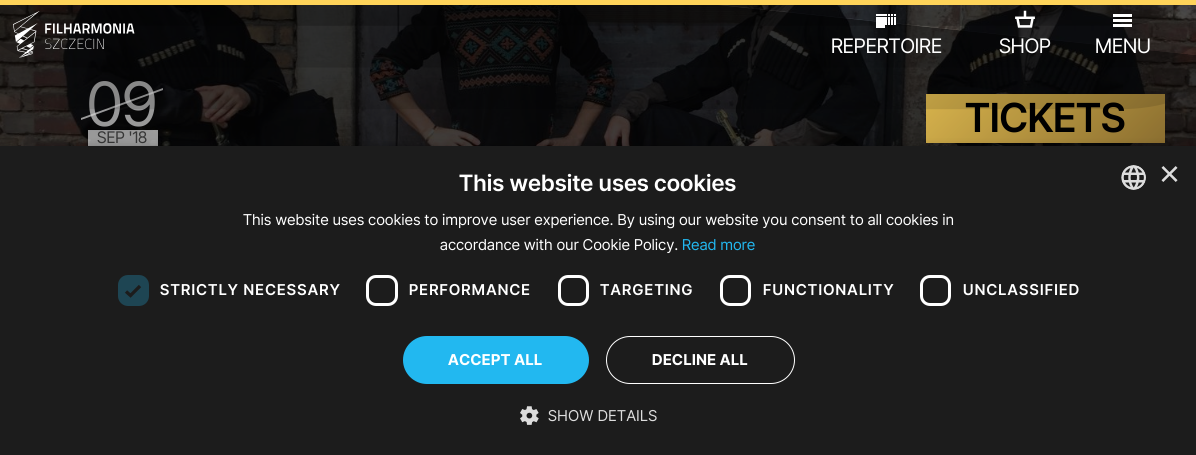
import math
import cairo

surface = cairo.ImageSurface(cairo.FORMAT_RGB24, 1196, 455)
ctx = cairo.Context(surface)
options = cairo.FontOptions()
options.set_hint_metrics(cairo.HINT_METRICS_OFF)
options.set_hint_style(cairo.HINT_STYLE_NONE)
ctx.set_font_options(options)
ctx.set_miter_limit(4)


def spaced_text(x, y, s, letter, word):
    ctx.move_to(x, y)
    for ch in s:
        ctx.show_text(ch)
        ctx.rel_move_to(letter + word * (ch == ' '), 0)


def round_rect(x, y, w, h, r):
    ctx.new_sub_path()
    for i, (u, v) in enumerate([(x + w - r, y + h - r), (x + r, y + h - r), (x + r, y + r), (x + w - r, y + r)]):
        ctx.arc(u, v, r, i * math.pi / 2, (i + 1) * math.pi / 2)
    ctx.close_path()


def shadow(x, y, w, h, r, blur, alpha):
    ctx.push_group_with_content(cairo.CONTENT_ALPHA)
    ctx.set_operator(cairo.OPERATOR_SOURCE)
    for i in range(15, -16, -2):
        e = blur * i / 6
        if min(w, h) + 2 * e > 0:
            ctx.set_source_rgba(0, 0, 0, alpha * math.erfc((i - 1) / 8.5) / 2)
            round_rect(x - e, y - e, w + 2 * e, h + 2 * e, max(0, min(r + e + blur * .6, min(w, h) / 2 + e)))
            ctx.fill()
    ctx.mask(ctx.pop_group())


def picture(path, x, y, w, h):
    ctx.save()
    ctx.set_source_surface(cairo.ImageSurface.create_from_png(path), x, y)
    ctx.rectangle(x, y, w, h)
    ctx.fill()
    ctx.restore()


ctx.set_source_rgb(1, 1, 1)
ctx.paint()
picture("img4.png", 0, 5, 1196, 141)
ctx.set_source_rgba(0, 0, 0, 0.7)
ctx.rectangle(0, 55, 1196, 91)
ctx.fill()
ctx.new_path()
ctx.move_to(0, -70)
ctx.line_to(1196, 55)
ctx.line_to(0, 55)
ctx.close_path()
ctx.fill()
ctx.set_source_rgba(0, 0, 0, 0.5)
ctx.new_path()
ctx.move_to(1196, -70)
ctx.line_to(1196, 55)
ctx.line_to(598, -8)
ctx.close_path()
ctx.fill()
ctx.select_font_face("Inter Tight")
ctx.set_font_size(61)
ctx.set_source_rgb(0.71, 0.71, 0.714)
ctx.move_to(87, 126)
ctx.show_text("09")
ctx.set_source_rgba(1, 1, 1, 0.7)
ctx.new_path()
ctx.move_to(81, 118)
ctx.line_to(163, 88)
ctx.line_to(163, 90)
ctx.line_to(81, 120)
ctx.close_path()
ctx.fill()
ctx.save()
ctx.set_fill_rule(cairo.FILL_RULE_EVEN_ODD)
ctx.new_path()
ctx.move_to(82, 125)
ctx.line_to(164, 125)
ctx.line_to(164, 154)
ctx.line_to(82, 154)
ctx.close_path()
ctx.move_to(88, 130)
ctx.line_to(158, 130)
ctx.line_to(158, 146)
ctx.line_to(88, 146)
ctx.close_path()
ctx.clip()
ctx.set_source_rgb(0, 0, 0)
shadow(88, 131, 70, 17, 0, 1.5, 0.7)
ctx.restore()
ctx.rectangle(88, 130, 70, 16)
ctx.fill()
gradient = cairo.LinearGradient(974, 46, 1118, 190)
gradient.add_color_stop_rgba(0, 1, 0.831, 0.353, 1)
gradient.add_color_stop_rgba(1, 0.647, 0.514, 0.224, 1)
ctx.set_source(gradient)
ctx.rectangle(926, 94, 239, 49)
ctx.fill()
ctx.set_source_rgb(0, 0, 0)
shadow(0, -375, 1196, 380, 0, 125, 1)
ctx.set_source_rgb(1, 0.831, 0.353)
ctx.rectangle(0, 0, 1196, 5)
ctx.fill()
picture("img1.png", 13, 11, 122, 47)
picture("img2.png", 876, 14, 20, 14)
ctx.set_font_size(20)
ctx.set_source_rgb(1, 1, 1)
ctx.move_to(831, 53)
ctx.show_text("REPERTOIRE")
picture("img3.png", 1015, 10, 20, 18)
ctx.move_to(999, 53)
ctx.show_text("SHOP")
ctx.rectangle(1113, 14, 19, 3)
ctx.fill()
ctx.rectangle(1113, 19, 19, 3)
ctx.fill()
ctx.rectangle(1113, 24, 19, 3)
ctx.fill()
ctx.move_to(1095, 53)
ctx.show_text("MENU")
ctx.set_font_size(16)
ctx.set_source_rgb(0.212, 0.212, 0.212)
ctx.move_to(97, 143)
ctx.show_text("SEP '18")
ctx.select_font_face("Inter Tight SemiBold")
ctx.set_font_size(40)
ctx.set_source_rgb(0, 0, 0)
ctx.move_to(965, 132)
ctx.show_text("TICKETS")
ctx.set_source_rgb(0, 0, 0)
shadow(1, 149, 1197, 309, 0, 5, 0.35)
ctx.set_source_rgb(0.11, 0.11, 0.11)
ctx.rectangle(0, 146, 1196, 309)
ctx.fill()
ctx.set_font_size(22.5)
ctx.set_source_rgb(1, 1, 1)
spaced_text(459, 191, "This website uses cookies", 0.5, 0)
picture("img5.png", 1121, 165, 25, 25)
ctx.select_font_face("Liberation Sans")
ctx.set_font_size(36)
ctx.set_source_rgb(0.867, 0.867, 0.867)
ctx.move_to(1159, 186)
ctx.show_text("×")
ctx.select_font_face("Inter Tight")
ctx.set_font_size(15)
ctx.set_source_rgb(1, 1, 1)
spaced_text(243, 225, "This website uses cookies to improve user experience. By using our website you consent to all cookies in", 0.38, 0)
spaced_text(440, 250, "accordance with our Cookie Policy.", 0.38, 0)
ctx.set_source_rgb(0.133, 0.722, 0.941)
spaced_text(682, 250, "Read more", 0.38, 0)
ctx.set_source_rgb(0.118, 0.271, 0.325)
round_rect(118, 275, 31, 31, 10)
ctx.fill()
ctx.new_path()
ctx.move_to(126, 291.5)
ctx.line_to(130.5, 295.5)
ctx.line_to(140, 286)
ctx.set_source_rgb(0.11, 0.11, 0.11)
ctx.set_line_width(3.3)
ctx.stroke()
ctx.select_font_face("Inter Tight SemiBold")
ctx.set_source_rgb(1, 1, 1)
spaced_text(160, 295, "STRICTLY NECESSARY", 1.25, 0)
round_rect(367.5, 276.5, 29, 28, 8.5)
ctx.set_line_width(3)
ctx.stroke()
spaced_text(409, 295, "PERFORMANCE", 1.25, 0)
round_rect(559.5, 276.5, 28, 28, 8.5)
ctx.stroke()
spaced_text(600, 295, "TARGETING", 1.25, 0)
round_rect(721.5, 276.5, 28, 28, 8.5)
ctx.stroke()
spaced_text(763, 295, "FUNCTIONALITY", 1.25, 0)
round_rect(921.5, 276.5, 28, 28, 8.5)
ctx.stroke()
spaced_text(963, 295, "UNCLASSIFIED", 1.25, 0)
ctx.set_source_rgb(0.133, 0.722, 0.941)
round_rect(403, 336, 186, 48, 24)
ctx.fill()
ctx.select_font_face("Inter Tight", cairo.FONT_SLANT_NORMAL, cairo.FONT_WEIGHT_BOLD)
ctx.set_source_rgb(1, 1, 1)
spaced_text(448, 365, "ACCEPT ALL", 0.5, 0)
round_rect(606.5, 336.5, 188, 47, 23.5)
ctx.set_line_width(1)
ctx.stroke()
spaced_text(652, 365, "DECLINE ALL", 0.5, 0)
picture("img6.png", 520, 406, 19, 19)
ctx.select_font_face("Inter Tight")
ctx.set_source_rgb(0.867, 0.867, 0.867)
spaced_text(548, 421, "SHOW DETAILS", 0.5, 0)
surface.write_to_png("page.png")
